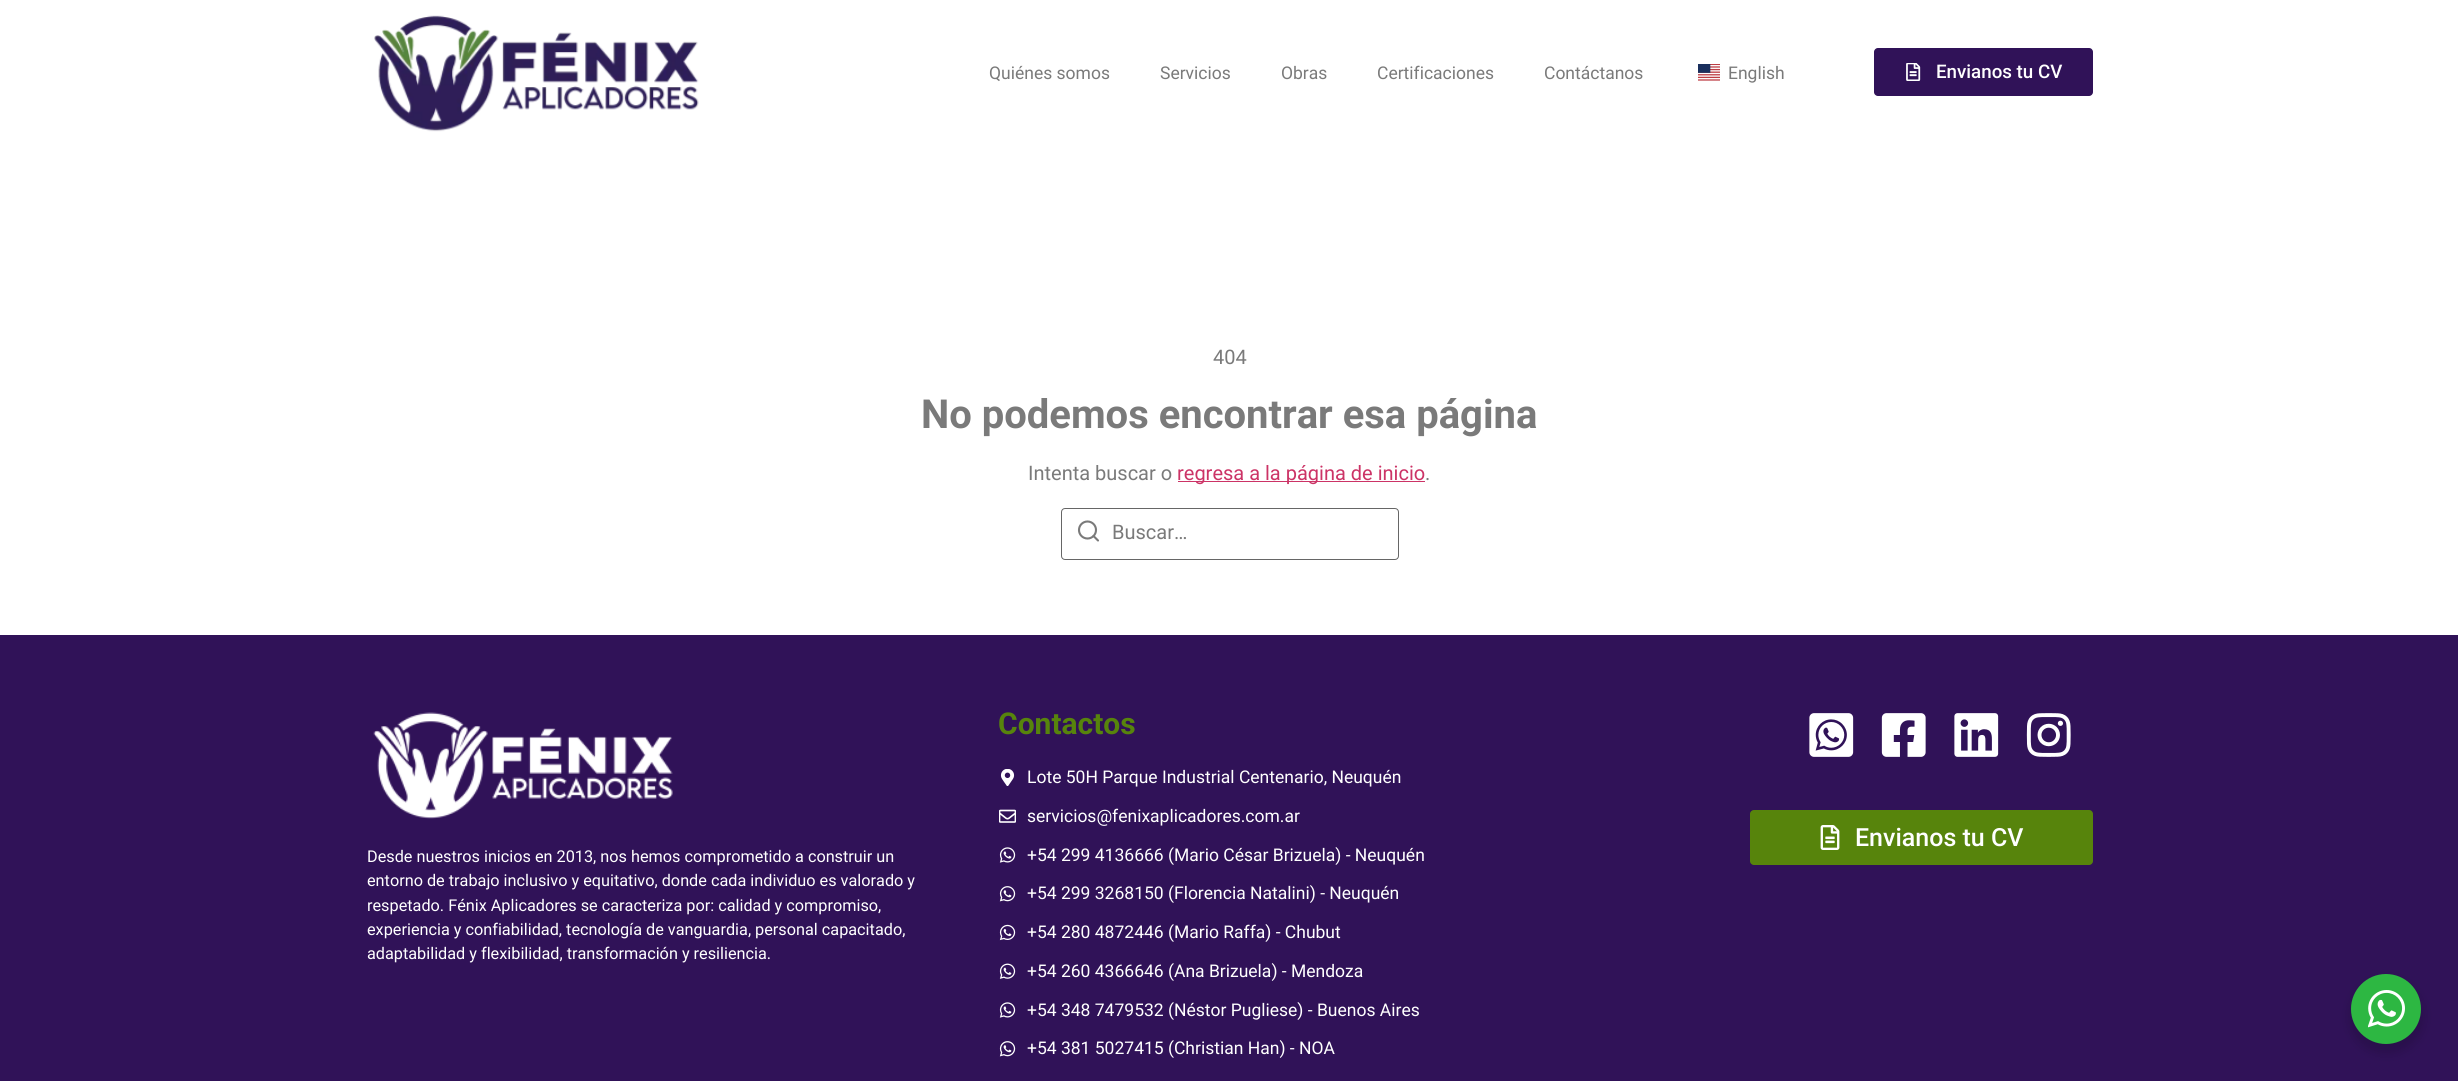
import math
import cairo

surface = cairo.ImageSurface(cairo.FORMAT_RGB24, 2458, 1081)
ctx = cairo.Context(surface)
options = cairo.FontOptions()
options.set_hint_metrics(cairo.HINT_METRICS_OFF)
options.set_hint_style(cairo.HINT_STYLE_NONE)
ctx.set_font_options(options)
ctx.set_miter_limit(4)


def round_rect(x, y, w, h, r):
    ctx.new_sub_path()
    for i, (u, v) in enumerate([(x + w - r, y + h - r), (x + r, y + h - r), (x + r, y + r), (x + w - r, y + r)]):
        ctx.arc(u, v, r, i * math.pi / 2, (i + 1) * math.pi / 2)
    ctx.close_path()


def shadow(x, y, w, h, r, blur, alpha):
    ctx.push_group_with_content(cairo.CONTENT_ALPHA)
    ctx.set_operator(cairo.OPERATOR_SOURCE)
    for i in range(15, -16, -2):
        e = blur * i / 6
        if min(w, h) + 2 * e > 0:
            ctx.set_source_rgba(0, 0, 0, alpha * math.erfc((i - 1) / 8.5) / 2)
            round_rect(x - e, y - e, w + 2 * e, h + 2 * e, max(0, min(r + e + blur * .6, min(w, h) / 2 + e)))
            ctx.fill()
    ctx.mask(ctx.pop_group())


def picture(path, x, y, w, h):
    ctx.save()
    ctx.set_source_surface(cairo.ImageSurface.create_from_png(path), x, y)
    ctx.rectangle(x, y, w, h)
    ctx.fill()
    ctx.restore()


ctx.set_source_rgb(1, 1, 1)
ctx.paint()
picture("img1.png", 374, 15, 325, 117)
ctx.select_font_face("Roboto")
ctx.set_font_size(17.5)
ctx.set_source_rgb(0.478, 0.478, 0.478)
ctx.move_to(989, 79)
ctx.show_text("Quiénes somos")
ctx.move_to(1160, 79)
ctx.show_text("Servicios")
ctx.move_to(1281, 79)
ctx.show_text("Obras")
ctx.move_to(1377, 79)
ctx.show_text("Certificaciones")
ctx.move_to(1544, 79)
ctx.show_text("Contáctanos")
picture("img2.png", 1698, 64, 22, 17)
ctx.move_to(1728, 79)
ctx.show_text("English")
ctx.set_source_rgb(0.188, 0.071, 0.345)
round_rect(1874, 48, 219, 48, 4)
ctx.fill()
picture("img3.png", 1906, 63, 15, 18)
ctx.select_font_face("Roboto Medium")
ctx.set_font_size(18.75)
ctx.set_source_rgb(1, 1, 1)
ctx.move_to(1936, 78)
ctx.show_text("Envianos tu CV")
ctx.select_font_face("Roboto")
ctx.set_font_size(20)
ctx.set_source_rgb(0.478, 0.478, 0.478)
ctx.move_to(1213, 364)
ctx.show_text("404")
ctx.select_font_face("Roboto", cairo.FONT_SLANT_NORMAL, cairo.FONT_WEIGHT_BOLD)
ctx.set_font_size(40)
ctx.move_to(921, 428)
ctx.show_text("No podemos encontrar esa página")
ctx.select_font_face("Roboto")
ctx.set_font_size(20)
ctx.move_to(1028, 480)
ctx.show_text("Intenta buscar o")
ctx.set_source_rgb(0.8, 0.2, 0.4)
ctx.rectangle(1178, 481, 247, 1)
ctx.fill()
ctx.move_to(1177, 480)
ctx.show_text("regresa a la página de inicio")
ctx.set_source_rgb(0.478, 0.478, 0.478)
ctx.move_to(1425, 480)
ctx.show_text(".")
round_rect(1061.5, 508.5, 337, 51, 3.5)
ctx.set_source_rgb(0.4, 0.4, 0.4)
ctx.set_line_width(1)
ctx.stroke()
ctx.arc(1087.5, 530, 8.5, 0, 2 * math.pi)
ctx.set_source_rgb(0.478, 0.478, 0.478)
ctx.set_line_width(2.1)
ctx.stroke()
ctx.new_path()
ctx.move_to(1098, 540.5)
ctx.line_to(1093.5, 536)
ctx.set_line_cap(cairo.LINE_CAP_ROUND)
ctx.set_line_join(cairo.LINE_JOIN_ROUND)
ctx.stroke()
ctx.move_to(1112, 539)
ctx.show_text("Buscar…")
ctx.set_source_rgb(0.188, 0.071, 0.345)
ctx.rectangle(0, 635, 2458, 446)
ctx.fill()
ctx.select_font_face("Roboto", cairo.FONT_SLANT_NORMAL, cairo.FONT_WEIGHT_BOLD)
ctx.set_font_size(30)
ctx.set_source_rgb(0.341, 0.518, 0.047)
ctx.move_to(998, 734)
ctx.show_text("Contactos")
picture("img4.png", 1000, 769, 15, 17)
ctx.select_font_face("Roboto")
ctx.set_font_size(17.5)
ctx.set_source_rgb(1, 1, 1)
ctx.move_to(1027, 783)
ctx.show_text("Lote 50H Parque Industrial Centenario, Neuquén")
picture("img5.png", 999, 809, 17, 14)
ctx.move_to(1027, 822)
ctx.show_text("servicios@fenixaplicadores.com.ar")
picture("img6.png", 999, 847, 17, 16)
ctx.move_to(1027, 861)
ctx.show_text("+54 299 4136666 (Mario César Brizuela) - Neuquén")
picture("img7.png", 999, 886, 17, 16)
ctx.move_to(1027, 899)
ctx.show_text("+54 299 3268150 (Florencia Natalini) - Neuquén")
picture("img8.png", 999, 924, 17, 17)
ctx.move_to(1027, 938)
ctx.show_text("+54 280 4872446 (Mario Raffa) - Chubut")
picture("img9.png", 999, 963, 17, 16)
ctx.move_to(1027, 977)
ctx.show_text("+54 260 4366646 (Ana Brizuela) - Mendoza")
picture("img6.png", 999, 1002, 17, 16)
ctx.move_to(1027, 1016)
ctx.show_text("+54 348 7479532 (Néstor Pugliese) - Buenos Aires")
picture("img7.png", 999, 1041, 17, 16)
ctx.move_to(1027, 1054)
ctx.show_text("+54 381 5027415 (Christian Han) - NOA")
picture("img10.png", 1809, 713, 45, 44)
picture("img11.png", 1881, 713, 45, 44)
picture("img12.png", 1954, 713, 45, 44)
picture("img13.png", 2026, 713, 45, 44)
ctx.set_source_rgb(0.341, 0.518, 0.047)
round_rect(1750, 810, 343, 55, 4)
ctx.fill()
picture("img14.png", 1820, 825, 20, 25)
ctx.select_font_face("Roboto Medium")
ctx.set_font_size(25)
ctx.set_source_rgb(1, 1, 1)
ctx.move_to(1855, 846)
ctx.show_text("Envianos tu CV")
picture("img15.png", 373, 712, 300, 107)
ctx.select_font_face("Roboto")
ctx.set_font_size(16.25)
ctx.move_to(367, 862)
ctx.show_text("Desde nuestros inicios en 2013, nos hemos comprometido a construir un")
ctx.move_to(367, 886)
ctx.show_text("entorno de trabajo inclusivo y equitativo, donde cada individuo es valorado y")
ctx.move_to(367, 911)
ctx.show_text("respetado. Fénix Aplicadores se caracteriza por: calidad y compromiso,")
ctx.move_to(367, 935)
ctx.show_text("experiencia y confiabilidad, tecnología de vanguardia, personal capacitado,")
ctx.move_to(367, 959)
ctx.show_text("adaptabilidad y flexibilidad, transformación y resiliencia.")
ctx.set_source_rgb(0, 0, 0)
shadow(2349, 979, 75, 75, 37.5, 5, 0.14)
ctx.set_source_rgb(0.176, 0.718, 0.259)
ctx.arc(2386, 1009, 35, 0, 2 * math.pi)
ctx.fill()
picture("img16.png", 2368, 990, 37, 38)
surface.write_to_png("page.png")
